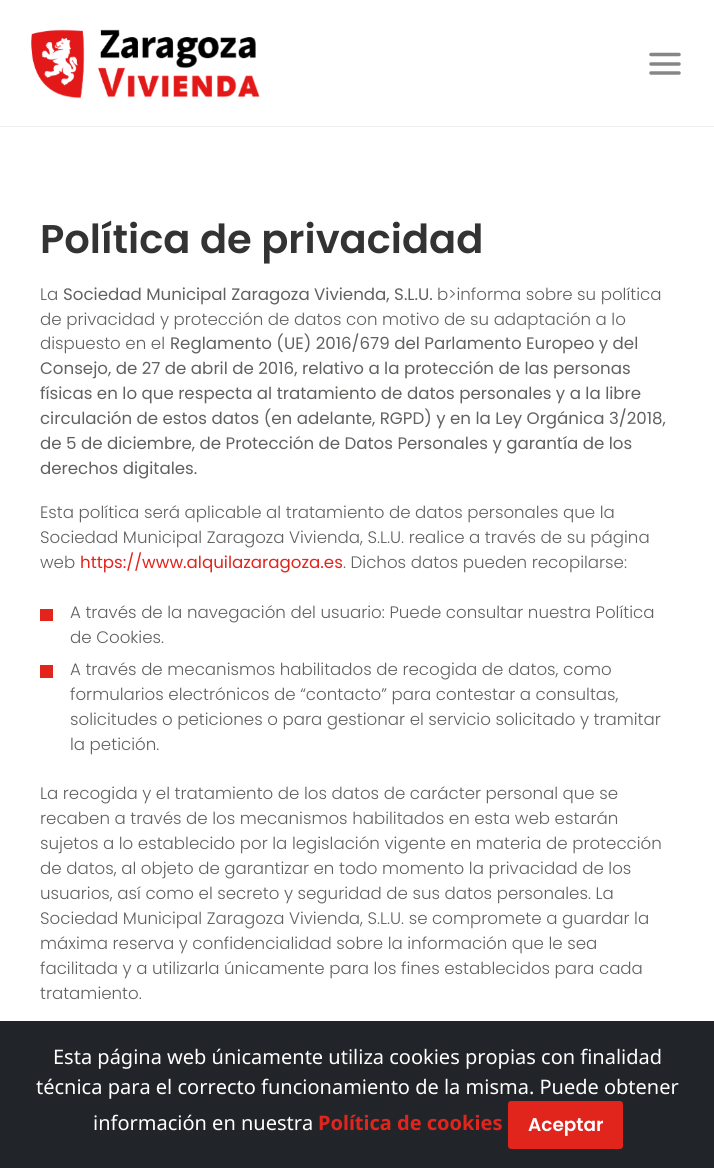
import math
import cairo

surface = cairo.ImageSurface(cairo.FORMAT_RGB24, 714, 1168)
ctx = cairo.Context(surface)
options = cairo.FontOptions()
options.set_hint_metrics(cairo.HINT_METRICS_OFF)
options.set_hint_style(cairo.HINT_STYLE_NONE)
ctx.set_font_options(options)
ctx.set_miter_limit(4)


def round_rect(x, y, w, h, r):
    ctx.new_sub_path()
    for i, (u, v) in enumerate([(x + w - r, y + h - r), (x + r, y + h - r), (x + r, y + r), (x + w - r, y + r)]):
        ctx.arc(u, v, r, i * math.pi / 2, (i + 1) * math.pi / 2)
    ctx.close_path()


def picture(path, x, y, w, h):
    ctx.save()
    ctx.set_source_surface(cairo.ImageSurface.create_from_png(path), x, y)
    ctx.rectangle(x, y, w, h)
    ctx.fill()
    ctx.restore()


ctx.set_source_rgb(1, 1, 1)
ctx.paint()
ctx.set_source_rgb(0.933, 0.933, 0.933)
ctx.rectangle(0, 126, 714, 1)
ctx.fill()
picture("img1.png", 31, 29, 229, 70)
ctx.new_path()
ctx.move_to(651, 54.5)
ctx.line_to(679, 54.5)
ctx.move_to(651, 64)
ctx.line_to(679, 64)
ctx.move_to(651, 73)
ctx.line_to(679, 73)
ctx.set_source_rgb(0.525, 0.525, 0.525)
ctx.set_line_width(3.5)
ctx.set_line_cap(cairo.LINE_CAP_ROUND)
ctx.stroke()
ctx.select_font_face("Poppins SemiBold")
ctx.set_font_size(40)
ctx.set_source_rgb(0.2, 0.2, 0.2)
ctx.move_to(40, 253)
ctx.show_text("Política de privacidad")
ctx.select_font_face("Poppins Light")
ctx.set_font_size(16.65)
ctx.set_source_rgb(0.38, 0.38, 0.376)
ctx.move_to(40, 300)
ctx.show_text("La")
ctx.select_font_face("Poppins")
ctx.move_to(63, 300)
ctx.show_text("Sociedad Municipal Zaragoza Vivienda, S.L.U.")
ctx.select_font_face("Poppins Light")
ctx.move_to(437, 300)
ctx.show_text("b>informa sobre su política")
ctx.move_to(40, 325)
ctx.show_text("de privacidad y protección de datos con motivo de su adaptación a lo")
ctx.move_to(40, 349)
ctx.show_text("dispuesto en el")
ctx.select_font_face("Poppins")
ctx.move_to(170, 349)
ctx.show_text("Reglamento (UE) 2016/679 del Parlamento Europeo y del")
ctx.move_to(40, 374)
ctx.show_text("Consejo, de 27 de abril de 2016, relativo a la protección de las personas")
ctx.move_to(40, 399)
ctx.show_text("físicas en lo que respecta al tratamiento de datos personales y a la libre")
ctx.move_to(40, 424)
ctx.show_text("circulación de estos datos (en adelante, RGPD) y en la Ley Orgánica 3/2018,")
ctx.move_to(40, 449)
ctx.show_text("de 5 de diciembre, de Protección de Datos Personales y garantía de los")
ctx.move_to(40, 474)
ctx.show_text("derechos digitales.")
ctx.select_font_face("Poppins Light")
ctx.move_to(40, 518)
ctx.show_text("Esta política será aplicable al tratamiento de datos personales que la")
ctx.move_to(40, 543)
ctx.show_text("Sociedad Municipal Zaragoza Vivienda, S.L.U. realice a través de su página")
ctx.move_to(40, 568)
ctx.show_text("web")
ctx.select_font_face("Poppins")
ctx.set_source_rgb(0.882, 0.141, 0.11)
ctx.move_to(80, 568)
ctx.show_text("https://www.alquilazaragoza.es")
ctx.select_font_face("Poppins Light")
ctx.set_source_rgb(0.38, 0.38, 0.376)
ctx.move_to(343, 568)
ctx.show_text(". Dichos datos pueden recopilarse:")
ctx.set_source_rgb(0.882, 0.141, 0.11)
ctx.rectangle(40, 609, 13, 12)
ctx.fill()
ctx.set_source_rgb(0.38, 0.38, 0.376)
ctx.move_to(70, 618)
ctx.show_text("A través de la navegación del usuario: Puede consultar nuestra Política")
ctx.move_to(70, 643)
ctx.show_text("de Cookies.")
ctx.set_source_rgb(0.882, 0.141, 0.11)
ctx.rectangle(40, 665, 13, 13)
ctx.fill()
ctx.set_source_rgb(0.38, 0.38, 0.376)
ctx.move_to(70, 675)
ctx.show_text("A través de mecanismos habilitados de recogida de datos, como")
ctx.move_to(70, 700)
ctx.show_text("formularios electrónicos de “contacto” para contestar a consultas,")
ctx.move_to(70, 725)
ctx.show_text("solicitudes o peticiones o para gestionar el servicio solicitado y tramitar")
ctx.move_to(70, 750)
ctx.show_text("la petición.")
ctx.move_to(40, 799)
ctx.show_text("La recogida y el tratamiento de los datos de carácter personal que se")
ctx.move_to(40, 824)
ctx.show_text("recaben a través de los mecanismos habilitados en esta web estarán")
ctx.move_to(40, 849)
ctx.show_text("sujetos a lo establecido por la legislación vigente en materia de protección")
ctx.move_to(40, 874)
ctx.show_text("de datos, al objeto de garantizar en todo momento la privacidad de los")
ctx.move_to(40, 899)
ctx.show_text("usuarios, así como el secreto y seguridad de sus datos personales. La")
ctx.move_to(40, 924)
ctx.show_text("Sociedad Municipal Zaragoza Vivienda, S.L.U. se compromete a guardar la")
ctx.move_to(40, 949)
ctx.show_text("máxima reserva y confidencialidad sobre la información que le sea")
ctx.move_to(40, 974)
ctx.show_text("facilitada y a utilizarla únicamente para los fines establecidos para cada")
ctx.move_to(40, 999)
ctx.show_text("tratamiento.")
ctx.set_source_rgb(0.129, 0.145, 0.161)
ctx.rectangle(0, 1021, 714, 147)
ctx.fill()
ctx.select_font_face("Noto Sans")
ctx.set_font_size(20)
ctx.set_source_rgb(1, 1, 1)
ctx.move_to(53, 1064)
ctx.show_text("Esta página web únicamente utiliza cookies propias con finalidad")
ctx.move_to(36, 1094)
ctx.show_text("técnica para el correcto funcionamiento de la misma. Puede obtener")
ctx.move_to(93, 1130)
ctx.show_text("información en nuestra")
ctx.select_font_face("Noto Sans", cairo.FONT_SLANT_NORMAL, cairo.FONT_WEIGHT_BOLD)
ctx.set_source_rgb(0.882, 0.141, 0.11)
ctx.move_to(318, 1130)
ctx.show_text("Política de cookies")
round_rect(508, 1101, 115, 48, 3)
ctx.fill()
ctx.select_font_face("Poppins SemiBold")
ctx.set_font_size(18.5)
ctx.set_source_rgb(1, 1, 1)
ctx.move_to(528, 1131)
ctx.show_text("Aceptar")
surface.write_to_png("page.png")
